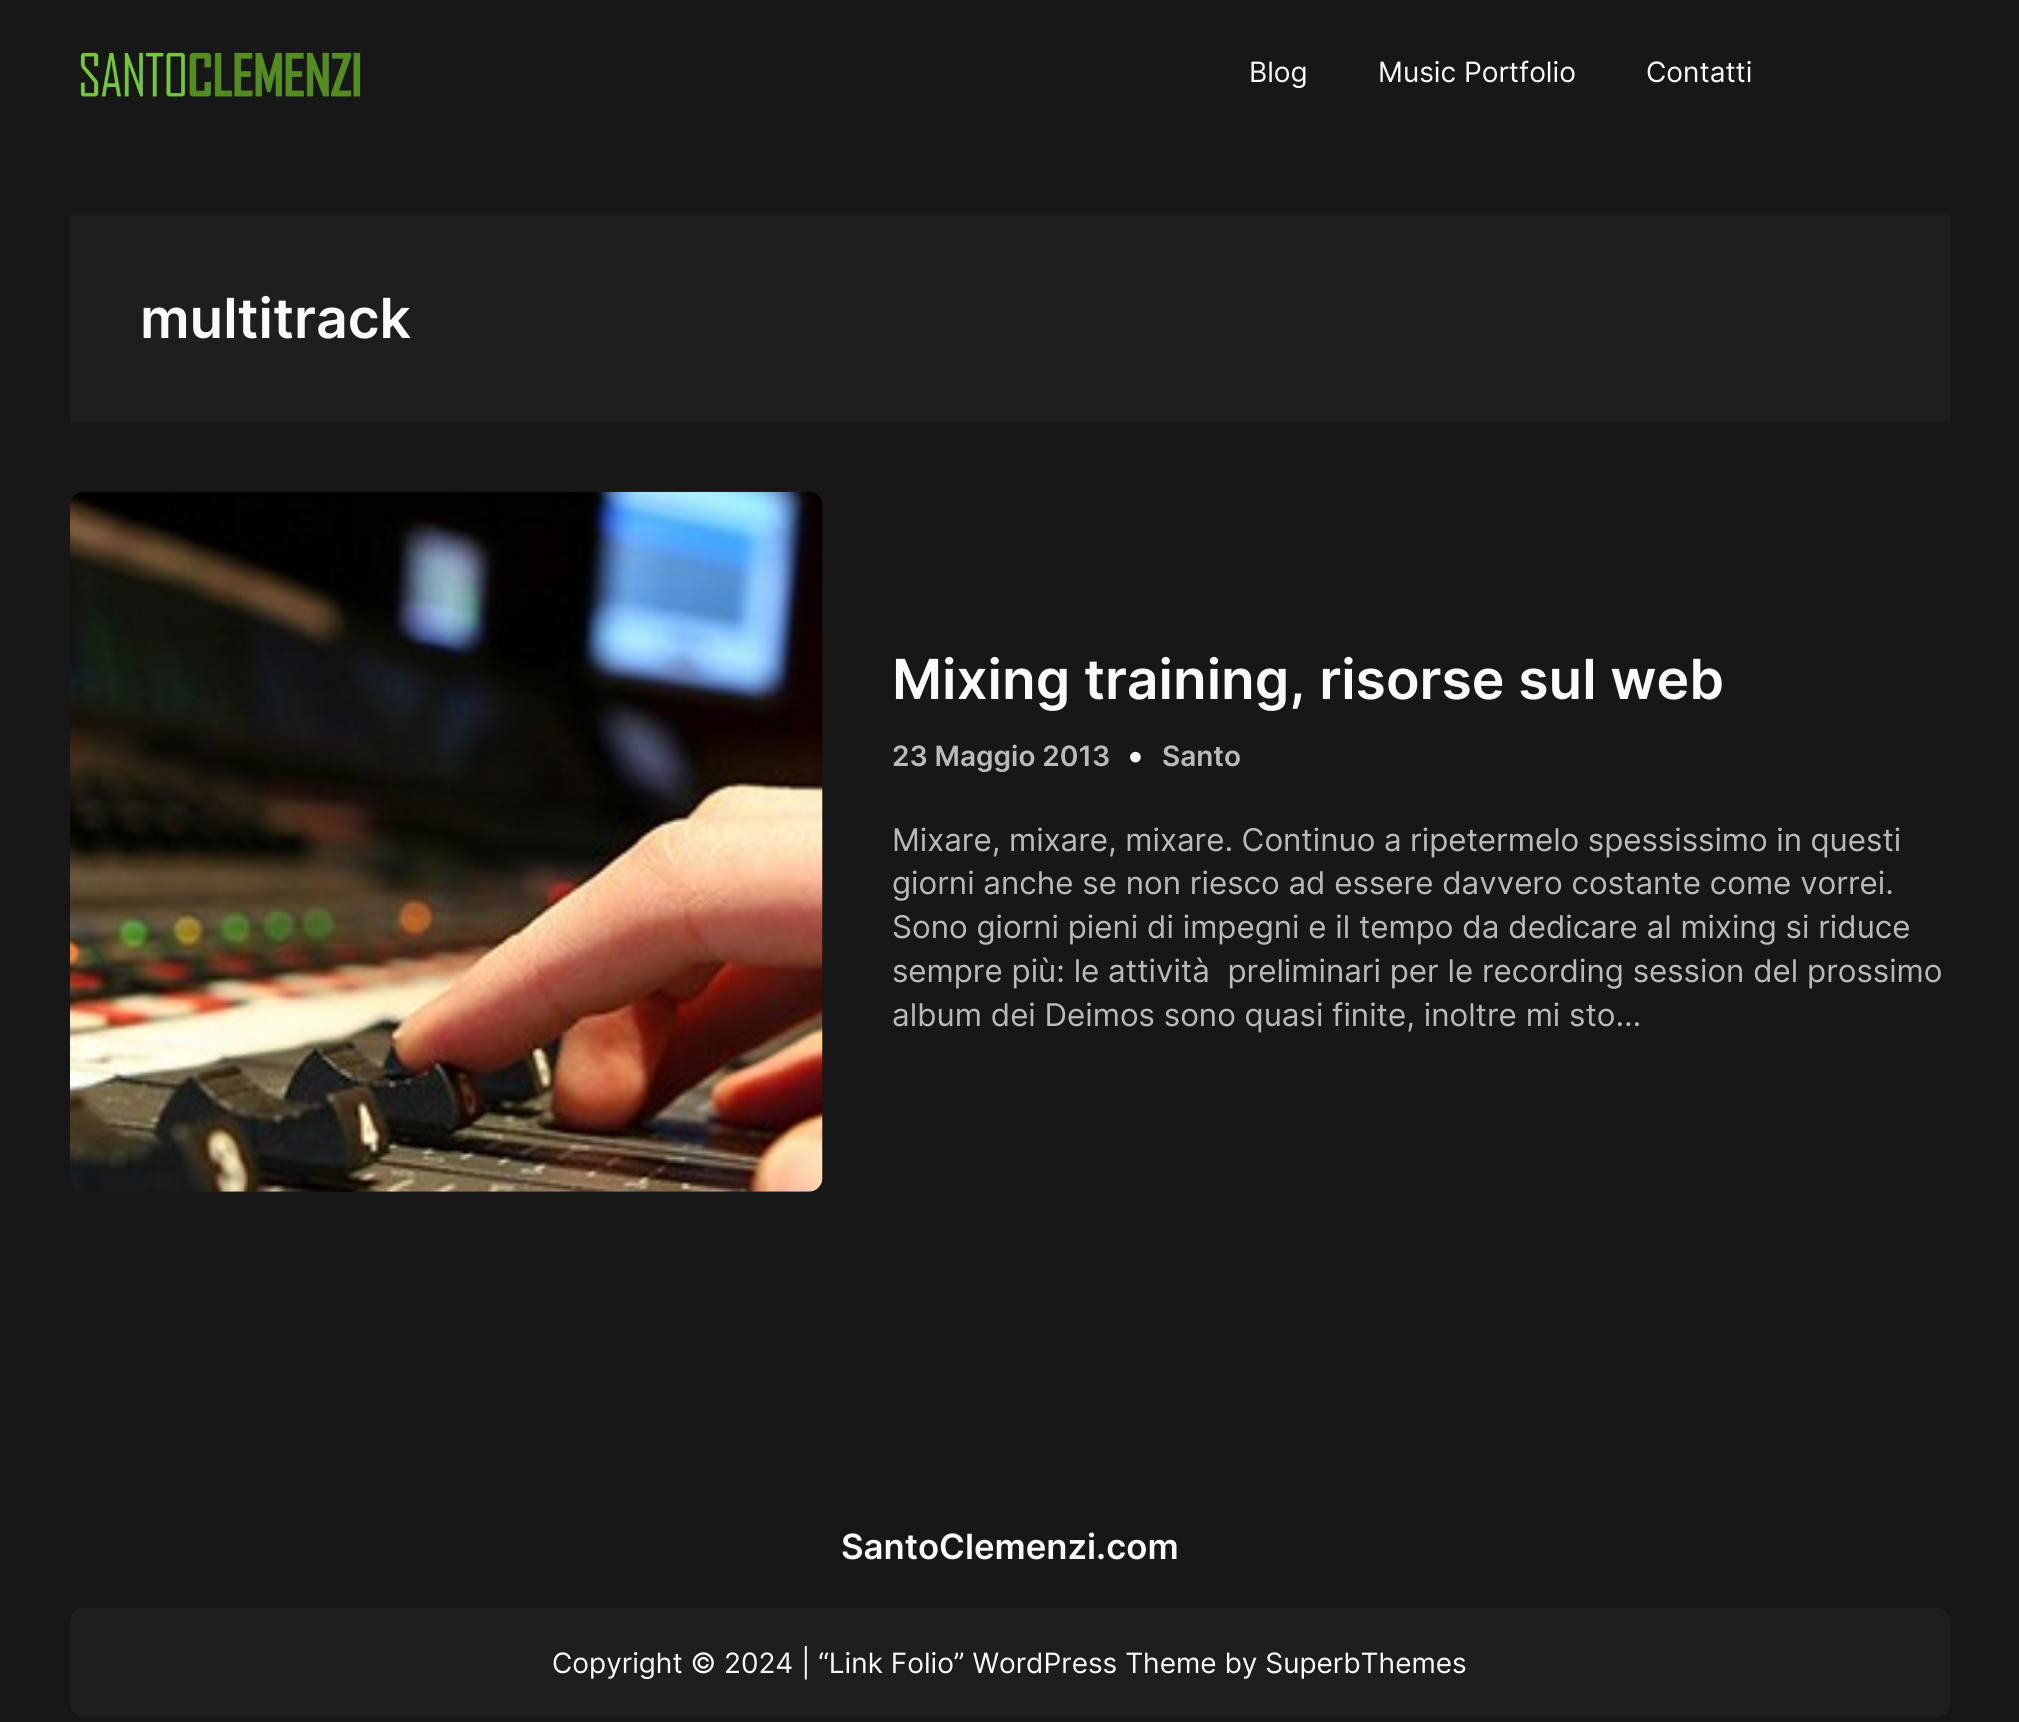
import math
import cairo

surface = cairo.ImageSurface(cairo.FORMAT_RGB24, 2019, 1722)
ctx = cairo.Context(surface)
options = cairo.FontOptions()
options.set_hint_metrics(cairo.HINT_METRICS_OFF)
options.set_hint_style(cairo.HINT_STYLE_NONE)
ctx.set_font_options(options)
ctx.set_miter_limit(4)


def spaced_text(x, y, s, letter, word):
    ctx.move_to(x, y)
    for ch in s:
        ctx.show_text(ch)
        ctx.rel_move_to(letter + word * (ch == ' '), 0)


def round_rect(x, y, w, h, r):
    ctx.new_sub_path()
    for i, (u, v) in enumerate([(x + w - r, y + h - r), (x + r, y + h - r), (x + r, y + r), (x + w - r, y + r)]):
        ctx.arc(u, v, r, i * math.pi / 2, (i + 1) * math.pi / 2)
    ctx.close_path()


def picture(path, x, y, w, h):
    ctx.save()
    ctx.set_source_surface(cairo.ImageSurface.create_from_png(path), x, y)
    ctx.rectangle(x, y, w, h)
    ctx.fill()
    ctx.restore()


ctx.set_source_rgb(0.09, 0.09, 0.09)
ctx.paint()
picture("img1.png", 80, 52, 281, 45)
ctx.select_font_face("Inter")
ctx.set_font_size(28)
ctx.set_source_rgb(0.98, 0.98, 0.98)
ctx.move_to(1249, 82)
ctx.show_text("Blog")
ctx.move_to(1378, 82)
ctx.show_text("Music Portfolio")
ctx.move_to(1646, 82)
ctx.show_text("Contatti")
ctx.set_source_rgb(0.118, 0.118, 0.118)
ctx.rectangle(70, 215, 1880, 207)
ctx.fill()
ctx.select_font_face("Inter SemiBold")
ctx.set_font_size(55.25)
ctx.set_source_rgb(0.98, 0.98, 0.98)
ctx.move_to(140, 338)
ctx.show_text("multitrack")
picture("img2.png", 70, 491, 753, 701)
ctx.move_to(892, 699)
ctx.show_text("Mixing training, risorse sul web")
ctx.set_font_size(28)
ctx.set_source_rgb(0.729, 0.729, 0.729)
ctx.move_to(892, 766)
ctx.show_text("23 Maggio 2013")
ctx.set_font_size(34)
ctx.set_source_rgb(0.98, 0.98, 0.98)
ctx.move_to(1127, 767)
ctx.show_text("•")
ctx.set_font_size(28)
ctx.set_source_rgb(0.729, 0.729, 0.729)
ctx.move_to(1162, 766)
ctx.show_text("Santo")
ctx.select_font_face("Inter")
ctx.set_font_size(31.3)
spaced_text(892, 851, "Mixare, mixare, mixare. Continuo a ripetermelo spessissimo in questi", 0, -0.25)
ctx.move_to(892, 894)
ctx.show_text("giorni anche se non riesco ad essere davvero costante come vorrei.")
ctx.move_to(892, 938)
ctx.show_text("Sono giorni pieni di impegni e il tempo da dedicare al mixing si riduce")
ctx.move_to(892, 982)
ctx.show_text("sempre più: le attività  preliminari per le recording session del prossimo")
ctx.move_to(892, 1026)
ctx.show_text("album dei Deimos sono quasi finite, inoltre mi sto…")
ctx.select_font_face("Inter SemiBold")
ctx.set_font_size(34.75)
ctx.set_source_rgb(0.98, 0.98, 0.98)
ctx.move_to(841, 1559)
ctx.show_text("SantoClemenzi.com")
ctx.set_source_rgb(0.118, 0.118, 0.118)
round_rect(70, 1608, 1880, 109, 14)
ctx.fill()
ctx.select_font_face("Inter")
ctx.set_font_size(28)
ctx.set_source_rgb(0.98, 0.98, 0.98)
ctx.move_to(552, 1673)
ctx.show_text("Copyright © 2024 | “Link Folio” WordPress Theme by SuperbThemes")
surface.write_to_png("page.png")
